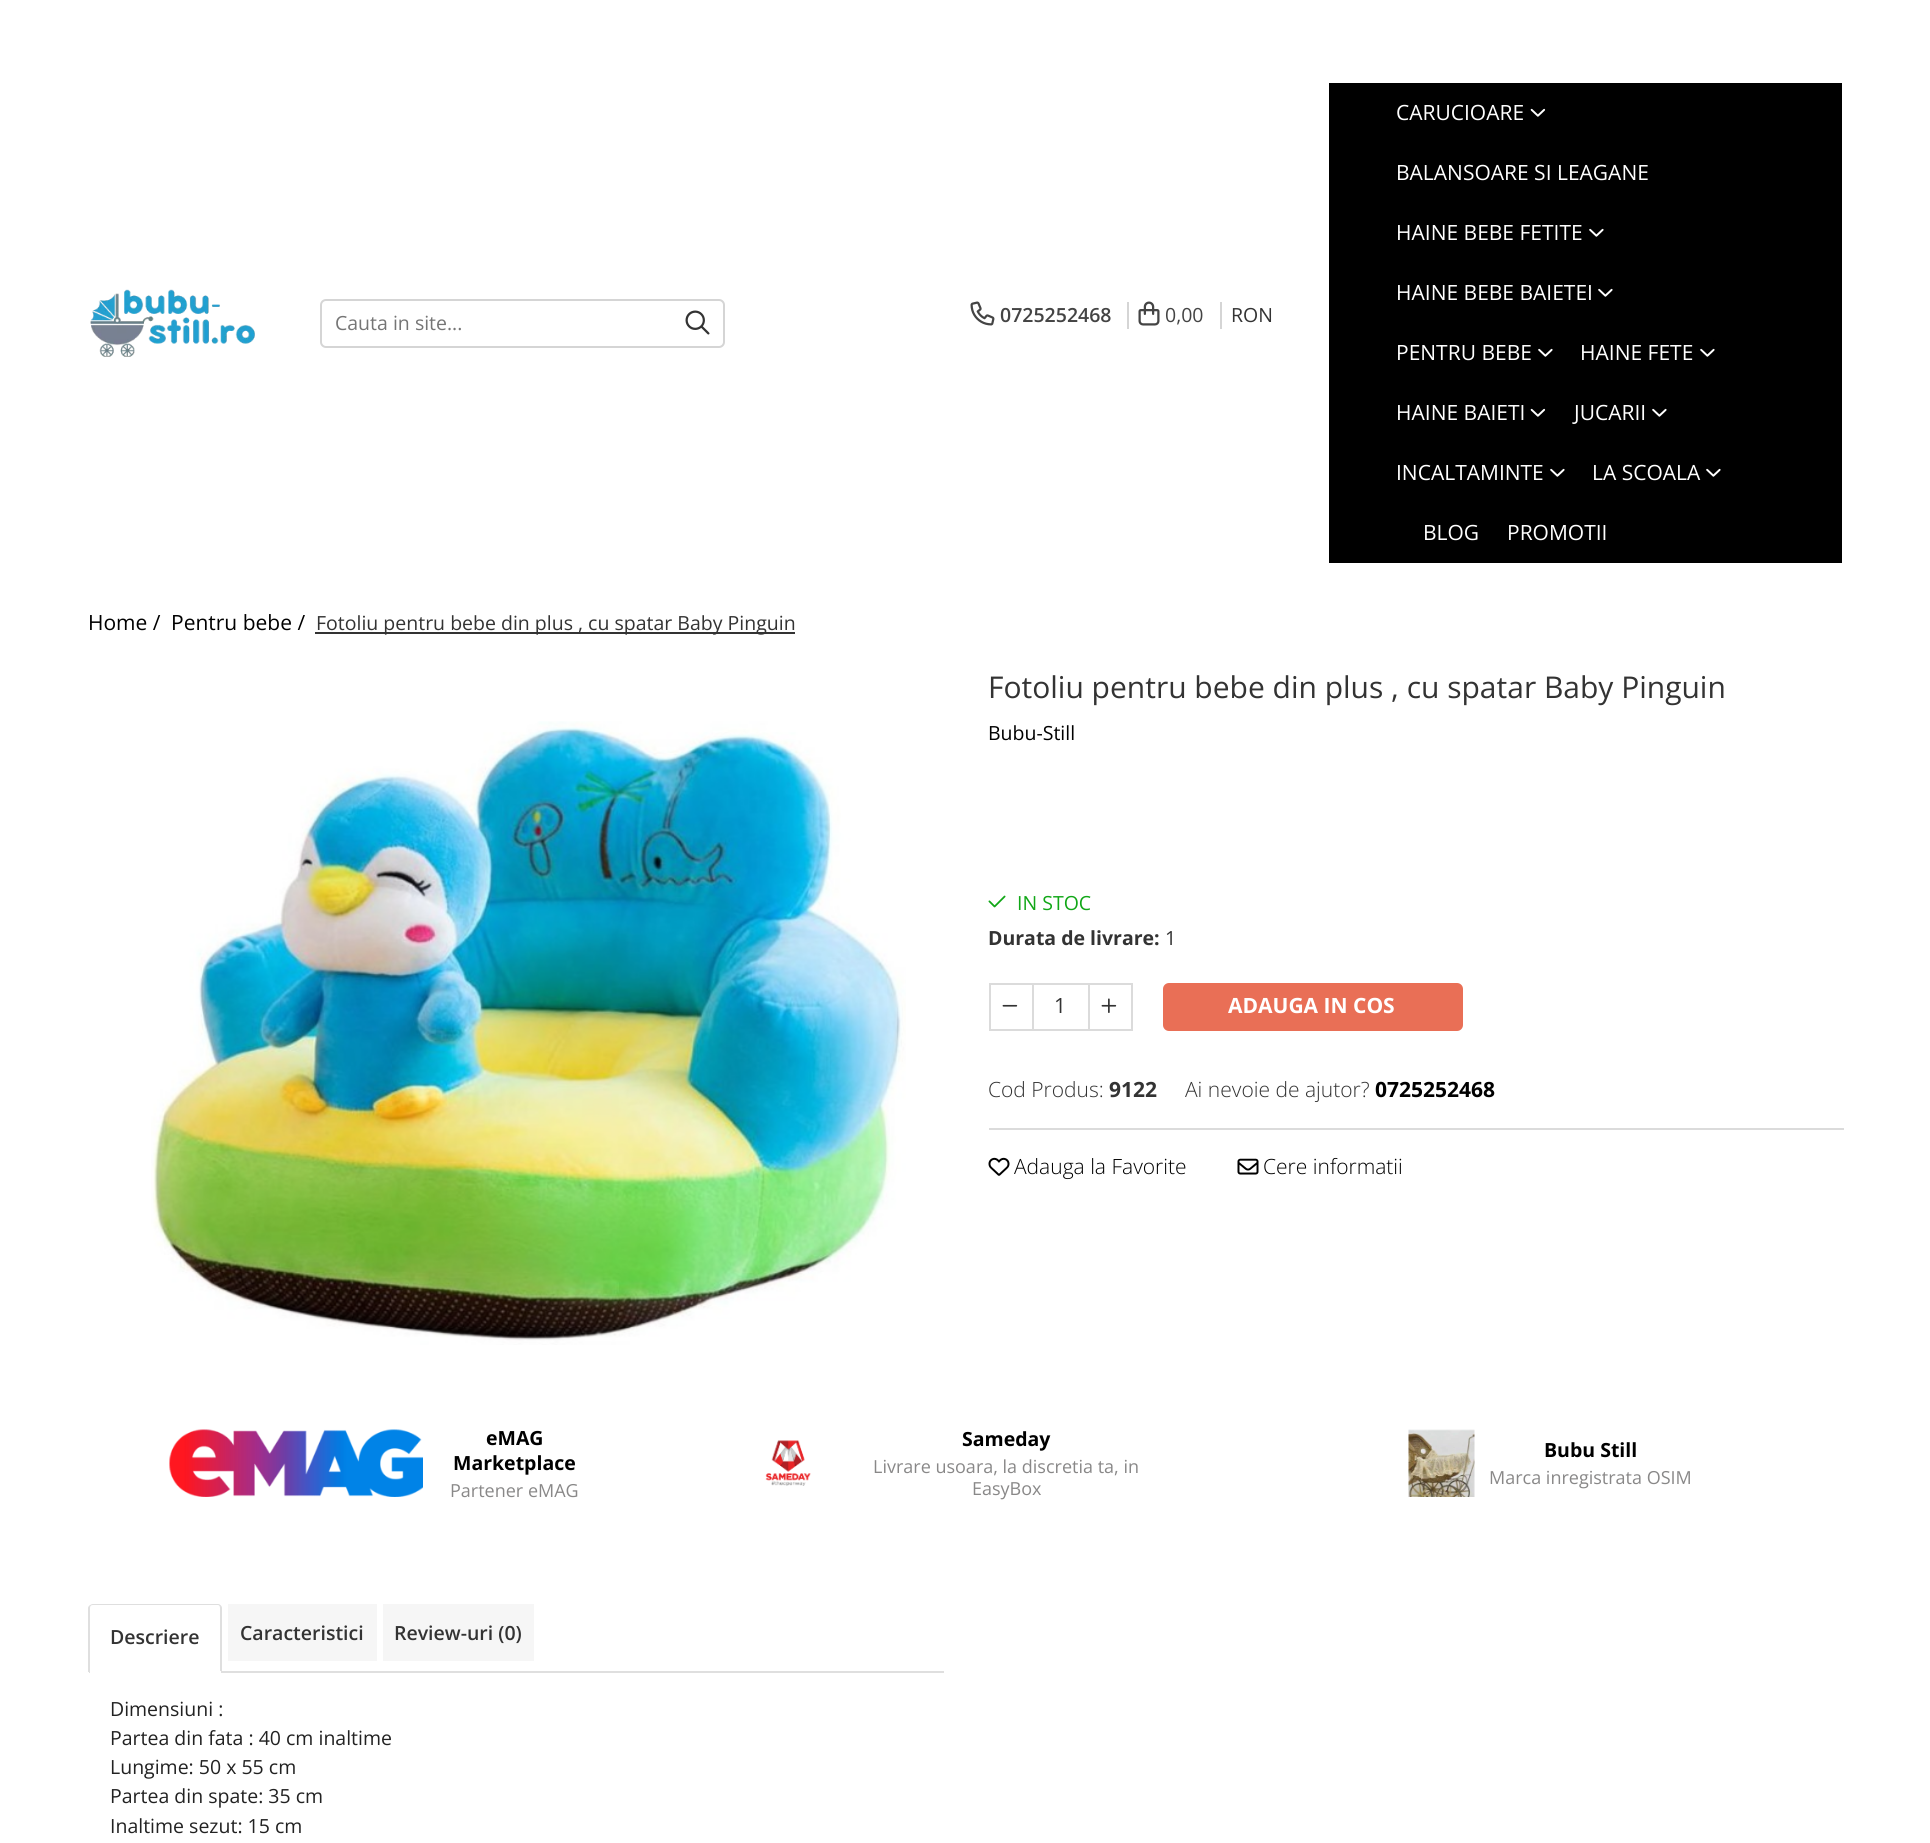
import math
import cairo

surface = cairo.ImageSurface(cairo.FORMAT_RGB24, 1930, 1843)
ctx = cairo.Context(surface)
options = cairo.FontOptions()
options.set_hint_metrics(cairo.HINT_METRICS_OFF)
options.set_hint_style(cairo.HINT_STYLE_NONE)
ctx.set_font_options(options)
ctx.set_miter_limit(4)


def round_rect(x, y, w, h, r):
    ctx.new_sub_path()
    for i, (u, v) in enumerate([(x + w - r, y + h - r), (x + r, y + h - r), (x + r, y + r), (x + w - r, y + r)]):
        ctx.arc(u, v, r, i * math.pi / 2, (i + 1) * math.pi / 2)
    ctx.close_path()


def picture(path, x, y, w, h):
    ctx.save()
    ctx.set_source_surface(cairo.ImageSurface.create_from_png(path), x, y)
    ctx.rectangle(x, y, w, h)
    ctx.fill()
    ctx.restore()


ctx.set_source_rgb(1, 1, 1)
ctx.paint()
picture("img1.png", 90, 289, 165, 68)
round_rect(321, 300, 403, 47, 5)
ctx.set_source_rgb(0.835, 0.835, 0.835)
ctx.stroke()
ctx.select_font_face("Open Sans")
ctx.set_font_size(19.5)
ctx.set_source_rgb(0.459, 0.459, 0.459)
ctx.move_to(335, 330)
ctx.show_text("Cauta in site...")
picture("img2.png", 685, 310, 25, 25)
picture("img3.png", 970, 301, 25, 25)
ctx.select_font_face("Open Sans SemiBold")
ctx.set_source_rgb(0.267, 0.267, 0.267)
ctx.move_to(1000, 322)
ctx.show_text("0725252468")
ctx.set_source_rgb(0.835, 0.835, 0.835)
ctx.rectangle(1127, 302, 2, 27)
ctx.fill()
picture("img4.png", 1138, 301, 22, 25)
ctx.select_font_face("Open Sans")
ctx.set_source_rgb(0.267, 0.267, 0.267)
ctx.move_to(1165, 322)
ctx.show_text("0,00")
ctx.set_source_rgb(0.2, 0.2, 0.2)
ctx.move_to(1231, 322)
ctx.show_text("RON")
ctx.set_source_rgb(0.835, 0.835, 0.835)
ctx.rectangle(1220, 302, 2, 27)
ctx.fill()
ctx.set_source_rgb(0, 0, 0)
ctx.rectangle(1329, 83, 513, 480)
ctx.fill()
ctx.set_font_size(21)
ctx.set_source_rgb(1, 1, 1)
ctx.move_to(1396, 120)
ctx.show_text("CARUCIOARE")
picture("img5.png", 1530, 108, 16, 9)
ctx.move_to(1396, 180)
ctx.show_text("BALANSOARE SI LEAGANE")
ctx.move_to(1396, 240)
ctx.show_text("HAINE BEBE FETITE")
picture("img6.png", 1589, 228, 15, 9)
ctx.move_to(1396, 300)
ctx.show_text("HAINE BEBE BAIETEI")
picture("img6.png", 1598, 288, 15, 9)
ctx.move_to(1396, 360)
ctx.show_text("PENTRU BEBE")
picture("img6.png", 1538, 348, 15, 9)
ctx.move_to(1580, 360)
ctx.show_text("HAINE FETE")
picture("img6.png", 1700, 348, 15, 9)
ctx.move_to(1396, 420)
ctx.show_text("HAINE BAIETI")
picture("img5.png", 1530, 408, 16, 9)
ctx.move_to(1574, 420)
ctx.show_text("JUCARII")
picture("img6.png", 1652, 408, 15, 9)
ctx.move_to(1396, 480)
ctx.show_text("INCALTAMINTE")
picture("img6.png", 1550, 468, 15, 9)
ctx.move_to(1592, 480)
ctx.show_text("LA SCOALA")
picture("img6.png", 1706, 468, 15, 9)
ctx.move_to(1423, 540)
ctx.show_text("BLOG")
ctx.move_to(1507, 540)
ctx.show_text("PROMOTII")
ctx.set_source_rgb(0, 0, 0)
ctx.move_to(88, 630)
ctx.show_text("Home /")
ctx.move_to(171, 630)
ctx.show_text("Pentru bebe /")
ctx.set_source_rgb(0.2, 0.2, 0.2)
ctx.rectangle(315, 632, 480, 2)
ctx.fill()
ctx.set_font_size(19.5)
ctx.move_to(316, 630)
ctx.show_text("Fotoliu pentru bebe din plus , cu spatar Baby Pinguin")
picture("img7.png", 151, 721, 755, 624)
ctx.set_font_size(30)
ctx.move_to(988, 698)
ctx.show_text("Fotoliu pentru bebe din plus , cu spatar Baby Pinguin")
ctx.set_font_size(19.5)
ctx.set_source_rgb(0, 0, 0)
ctx.move_to(988, 740)
ctx.show_text("Bubu-Still")
picture("img8.png", 988, 895, 18, 13)
ctx.set_source_rgb(0.067, 0.655, 0.09)
ctx.move_to(1017, 910)
ctx.show_text("IN STOC")
ctx.select_font_face("Open Sans", cairo.FONT_SLANT_NORMAL, cairo.FONT_WEIGHT_BOLD)
ctx.set_source_rgb(0.2, 0.2, 0.2)
ctx.move_to(988, 945)
ctx.show_text("Durata de livrare:")
ctx.select_font_face("Open Sans")
ctx.move_to(1165, 945)
ctx.show_text("1")
ctx.rectangle(990, 984, 43, 46)
ctx.set_source_rgb(0.859, 0.859, 0.859)
ctx.stroke()
picture("img9.png", 1002, 1004, 16, 3)
ctx.rectangle(1034, 983, 54, 2)
ctx.fill()
ctx.rectangle(1034, 1029, 54, 2)
ctx.fill()
ctx.set_font_size(21)
ctx.set_source_rgb(0.2, 0.2, 0.2)
ctx.move_to(1054, 1013)
ctx.show_text("1")
ctx.rectangle(1089, 984, 43, 46)
ctx.set_source_rgb(0.859, 0.859, 0.859)
ctx.stroke()
picture("img10.png", 1101, 998, 16, 15)
ctx.set_source_rgb(0.914, 0.435, 0.337)
round_rect(1163, 983, 300, 48, 6)
ctx.fill()
ctx.select_font_face("Open Sans", cairo.FONT_SLANT_NORMAL, cairo.FONT_WEIGHT_BOLD)
ctx.set_source_rgb(1, 1, 1)
ctx.move_to(1228, 1013)
ctx.show_text("ADAUGA IN COS")
ctx.select_font_face("Open Sans Light")
ctx.set_source_rgb(0.2, 0.2, 0.2)
ctx.move_to(988, 1097)
ctx.show_text("Cod Produs:")
ctx.select_font_face("Open Sans", cairo.FONT_SLANT_NORMAL, cairo.FONT_WEIGHT_BOLD)
ctx.move_to(1109, 1097)
ctx.show_text("9122")
ctx.select_font_face("Open Sans Light")
ctx.move_to(1185, 1097)
ctx.show_text("Ai nevoie de ajutor?")
ctx.select_font_face("Open Sans", cairo.FONT_SLANT_NORMAL, cairo.FONT_WEIGHT_BOLD)
ctx.set_source_rgb(0, 0, 0)
ctx.move_to(1375, 1097)
ctx.show_text("0725252468")
ctx.set_source_rgb(0.859, 0.859, 0.859)
ctx.rectangle(989, 1128, 855, 2)
ctx.fill()
picture("img11.png", 988, 1157, 22, 19)
ctx.select_font_face("Open Sans Light")
ctx.set_source_rgb(0, 0, 0)
ctx.move_to(1014, 1174)
ctx.show_text("Adauga la Favorite")
picture("img12.png", 1237, 1158, 22, 17)
ctx.move_to(1263, 1174)
ctx.show_text("Cere informatii")
picture("img13.png", 169, 1429, 254, 68)
ctx.select_font_face("Open Sans", cairo.FONT_SLANT_NORMAL, cairo.FONT_WEIGHT_BOLD)
ctx.set_font_size(19.5)
ctx.move_to(486, 1445)
ctx.show_text("eMAG")
ctx.move_to(453, 1470)
ctx.show_text("Marketplace")
ctx.select_font_face("Open Sans")
ctx.set_font_size(18)
ctx.set_source_rgb(0.537, 0.533, 0.533)
ctx.move_to(450, 1497)
ctx.show_text("Partener eMAG")
picture("img14.png", 765, 1440, 46, 46)
ctx.select_font_face("Open Sans", cairo.FONT_SLANT_NORMAL, cairo.FONT_WEIGHT_BOLD)
ctx.set_font_size(19.5)
ctx.set_source_rgb(0, 0, 0)
ctx.move_to(962, 1446)
ctx.show_text("Sameday")
ctx.select_font_face("Open Sans")
ctx.set_font_size(18)
ctx.set_source_rgb(0.537, 0.533, 0.533)
ctx.move_to(873, 1473)
ctx.show_text("Livrare usoara, la discretia ta, in")
ctx.move_to(972, 1495)
ctx.show_text("EasyBox")
picture("img15.png", 1408, 1429, 67, 68)
ctx.select_font_face("Open Sans", cairo.FONT_SLANT_NORMAL, cairo.FONT_WEIGHT_BOLD)
ctx.set_font_size(19.5)
ctx.set_source_rgb(0, 0, 0)
ctx.move_to(1544, 1457)
ctx.show_text("Bubu Still")
ctx.select_font_face("Open Sans")
ctx.set_font_size(18)
ctx.set_source_rgb(0.537, 0.533, 0.533)
ctx.move_to(1489, 1484)
ctx.show_text("Marca inregistrata OSIM")
ctx.set_source_rgb(0.875, 0.875, 0.875)
ctx.rectangle(89, 1671, 855, 2)
ctx.fill()
ctx.set_source_rgb(1, 1, 1)
ctx.new_path()
ctx.move_to(93, 1605)
ctx.line_to(218, 1605)
ctx.curve_to(219.5, 1605, 221, 1606.5, 221, 1608)
ctx.line_to(221, 1673)
ctx.line_to(90, 1673)
ctx.line_to(90, 1608)
ctx.curve_to(90, 1606.5, 91.5, 1605, 93, 1605)
ctx.close_path()
ctx.fill()
ctx.set_source_rgb(0.875, 0.875, 0.875)
ctx.set_fill_rule(cairo.FILL_RULE_EVEN_ODD)
ctx.new_path()
ctx.move_to(93, 1604)
ctx.line_to(218, 1604)
ctx.curve_to(220, 1604, 222, 1606, 222, 1608)
ctx.line_to(222, 1672)
ctx.line_to(88, 1672)
ctx.line_to(88, 1608)
ctx.curve_to(88, 1606, 91, 1604, 93, 1604)
ctx.close_path()
ctx.move_to(93, 1605)
ctx.line_to(218, 1605)
ctx.curve_to(219, 1605, 220, 1606, 220, 1608)
ctx.line_to(220, 1672)
ctx.line_to(90, 1672)
ctx.line_to(90, 1608)
ctx.curve_to(90, 1606, 91, 1605, 93, 1605)
ctx.close_path()
ctx.fill()
ctx.select_font_face("Open Sans SemiBold")
ctx.set_font_size(19.5)
ctx.set_source_rgb(0.2, 0.2, 0.2)
ctx.move_to(110, 1644)
ctx.show_text("Descriere")
ctx.set_source_rgb(1, 1, 1)
ctx.rectangle(220, 1671, 1, 1)
ctx.fill()
ctx.set_source_rgb(0.961, 0.961, 0.961)
ctx.rectangle(228, 1604, 149, 57)
ctx.fill()
ctx.set_source_rgb(0.2, 0.2, 0.2)
ctx.move_to(240, 1640)
ctx.show_text("Caracteristici")
ctx.set_source_rgb(0.961, 0.961, 0.961)
ctx.rectangle(383, 1604, 151, 57)
ctx.fill()
ctx.set_source_rgb(0.2, 0.2, 0.2)
ctx.move_to(394, 1640)
ctx.show_text("Review-uri (0)")
ctx.select_font_face("Open Sans")
ctx.set_source_rgb(0.133, 0.133, 0.133)
ctx.move_to(110, 1716)
ctx.show_text("Dimensiuni :")
ctx.move_to(110, 1745)
ctx.show_text("Partea din fata : 40 cm inaltime")
ctx.move_to(110, 1774)
ctx.show_text("Lungime: 50 x 55 cm")
ctx.move_to(110, 1803)
ctx.show_text("Partea din spate: 35 cm")
ctx.move_to(110, 1833)
ctx.show_text("Inaltime sezut: 15 cm")
surface.write_to_png("page.png")
